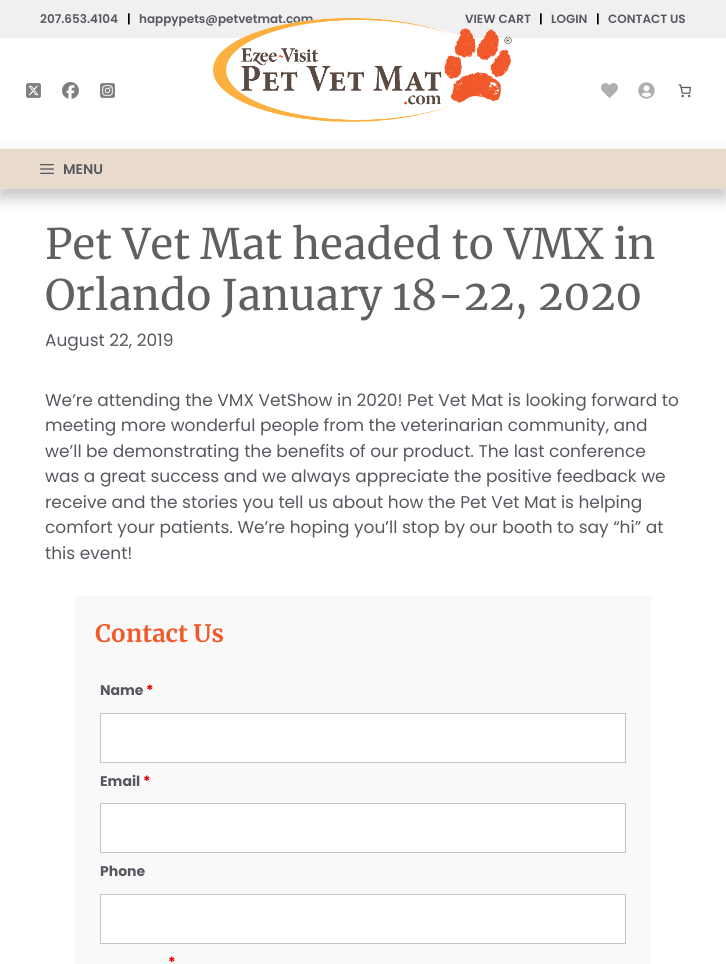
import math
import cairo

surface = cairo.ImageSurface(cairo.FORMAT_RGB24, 726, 964)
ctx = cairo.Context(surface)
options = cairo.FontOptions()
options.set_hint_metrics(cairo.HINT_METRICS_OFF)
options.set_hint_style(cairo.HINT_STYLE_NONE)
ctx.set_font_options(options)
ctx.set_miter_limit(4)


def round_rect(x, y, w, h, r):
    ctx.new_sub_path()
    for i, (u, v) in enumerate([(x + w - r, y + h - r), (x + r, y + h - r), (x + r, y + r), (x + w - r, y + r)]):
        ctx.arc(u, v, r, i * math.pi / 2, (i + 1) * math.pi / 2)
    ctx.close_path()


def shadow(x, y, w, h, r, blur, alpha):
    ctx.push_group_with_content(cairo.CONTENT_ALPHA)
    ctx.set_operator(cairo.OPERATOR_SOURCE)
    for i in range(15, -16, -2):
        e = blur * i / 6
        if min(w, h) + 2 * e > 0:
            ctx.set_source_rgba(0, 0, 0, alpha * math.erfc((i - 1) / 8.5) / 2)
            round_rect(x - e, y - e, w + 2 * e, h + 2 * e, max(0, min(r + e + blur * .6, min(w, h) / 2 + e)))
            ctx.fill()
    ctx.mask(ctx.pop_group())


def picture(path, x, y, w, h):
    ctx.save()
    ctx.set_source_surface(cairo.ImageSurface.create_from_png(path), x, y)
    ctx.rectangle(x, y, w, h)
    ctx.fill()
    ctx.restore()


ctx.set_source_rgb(1, 1, 1)
ctx.paint()
ctx.set_source_rgb(0.941, 0.941, 0.941)
ctx.rectangle(0, 0, 726, 38)
ctx.fill()
ctx.select_font_face("Poppins SemiBold")
ctx.set_font_size(12)
ctx.set_source_rgb(0.341, 0.341, 0.376)
ctx.move_to(40, 23)
ctx.show_text("207.653.4104")
ctx.set_source_rgb(0, 0, 0)
ctx.move_to(127, 23)
ctx.show_text("|")
ctx.set_source_rgb(0.341, 0.341, 0.376)
ctx.move_to(139, 23)
ctx.show_text("happypets@petvetmat.com")
ctx.move_to(465, 23)
ctx.show_text("VIEW CART")
ctx.set_source_rgb(0, 0, 0)
ctx.move_to(539, 23)
ctx.show_text("|")
ctx.set_source_rgb(0.341, 0.341, 0.376)
ctx.move_to(551, 23)
ctx.show_text("LOGIN")
ctx.set_source_rgb(0, 0, 0)
ctx.move_to(596, 23)
ctx.show_text("|")
ctx.set_source_rgb(0.341, 0.341, 0.376)
ctx.move_to(608, 23)
ctx.show_text("CONTACT US")
picture("img1.png", 26, 83, 15, 15)
picture("img2.png", 62, 82, 17, 17)
picture("img3.png", 100, 83, 15, 15)
picture("img4.png", 213, 18, 299, 104)
picture("img5.png", 601, 83, 17, 15)
picture("img6.png", 638, 82, 17, 17)
picture("img7.png", 678, 84, 13, 14)
ctx.set_source_rgb(0, 0, 0)
shadow(0, 157, 726, 40, 0, 8, 0.25)
ctx.set_source_rgb(0.914, 0.859, 0.804)
ctx.rectangle(0, 149, 726, 40)
ctx.fill()
picture("img8.png", 40, 164, 14, 10)
ctx.set_font_size(14)
ctx.set_source_rgb(0.341, 0.341, 0.376)
ctx.move_to(63, 174)
ctx.show_text("MENU")
ctx.select_font_face("Merriweather")
ctx.set_font_size(42)
ctx.set_source_rgb(0.376, 0.376, 0.376)
ctx.move_to(45, 259)
ctx.show_text("Pet Vet Mat headed to VMX in")
ctx.move_to(45, 310)
ctx.show_text("Orlando January 18-22, 2020")
ctx.select_font_face("Poppins")
ctx.set_font_size(17)
ctx.set_source_rgb(0.341, 0.341, 0.376)
ctx.move_to(45, 346)
ctx.show_text("August 22, 2019")
ctx.move_to(45, 406)
ctx.show_text("We’re attending the VMX VetShow in 2020! Pet Vet Mat is looking forward to")
ctx.move_to(45, 431)
ctx.show_text("meeting more wonderful people from the veterinarian community, and")
ctx.move_to(45, 457)
ctx.show_text("we’ll be demonstrating the benefits of our product. The last conference")
ctx.move_to(45, 482)
ctx.show_text("was a great success and we always appreciate the positive feedback we")
ctx.move_to(45, 508)
ctx.show_text("receive and the stories you tell us about how the Pet Vet Mat is helping")
ctx.move_to(45, 533)
ctx.show_text("comfort your patients. We’re hoping you’ll stop by our booth to say “hi” at")
ctx.move_to(45, 559)
ctx.show_text("this event!")
ctx.set_source_rgb(0.973, 0.973, 0.973)
ctx.rectangle(75, 596, 576, 368)
ctx.fill()
ctx.select_font_face("Merriweather", cairo.FONT_SLANT_NORMAL, cairo.FONT_WEIGHT_BOLD)
ctx.set_font_size(24)
ctx.set_source_rgb(0.945, 0.349, 0.169)
ctx.move_to(95, 642)
ctx.show_text("Contact Us")
ctx.select_font_face("Poppins", cairo.FONT_SLANT_NORMAL, cairo.FONT_WEIGHT_BOLD)
ctx.set_font_size(14)
ctx.set_source_rgb(0.341, 0.341, 0.376)
ctx.move_to(100, 695)
ctx.show_text("Name")
ctx.set_source_rgb(0.91, 0, 0)
ctx.move_to(146, 695)
ctx.show_text("*")
ctx.set_source_rgb(1, 1, 1)
ctx.rectangle(100.5, 713.5, 525, 49)
ctx.fill_preserve()
ctx.set_source_rgb(0.769, 0.769, 0.769)
ctx.set_line_width(1)
ctx.stroke()
ctx.set_source_rgb(0.341, 0.341, 0.376)
ctx.move_to(100, 786)
ctx.show_text("Email")
ctx.set_source_rgb(0.91, 0, 0)
ctx.move_to(143, 786)
ctx.show_text("*")
ctx.set_source_rgb(1, 1, 1)
ctx.rectangle(100.5, 803.5, 525, 49)
ctx.fill_preserve()
ctx.set_source_rgb(0.769, 0.769, 0.769)
ctx.stroke()
ctx.set_source_rgb(0.341, 0.341, 0.376)
ctx.move_to(100, 876)
ctx.show_text("Phone")
ctx.set_source_rgb(1, 1, 1)
ctx.rectangle(100.5, 894.5, 525, 49)
ctx.fill_preserve()
ctx.set_source_rgb(0.769, 0.769, 0.769)
ctx.stroke()
ctx.set_source_rgb(0.91, 0, 0)
ctx.move_to(168, 967)
ctx.show_text("*")
surface.write_to_png("page.png")
